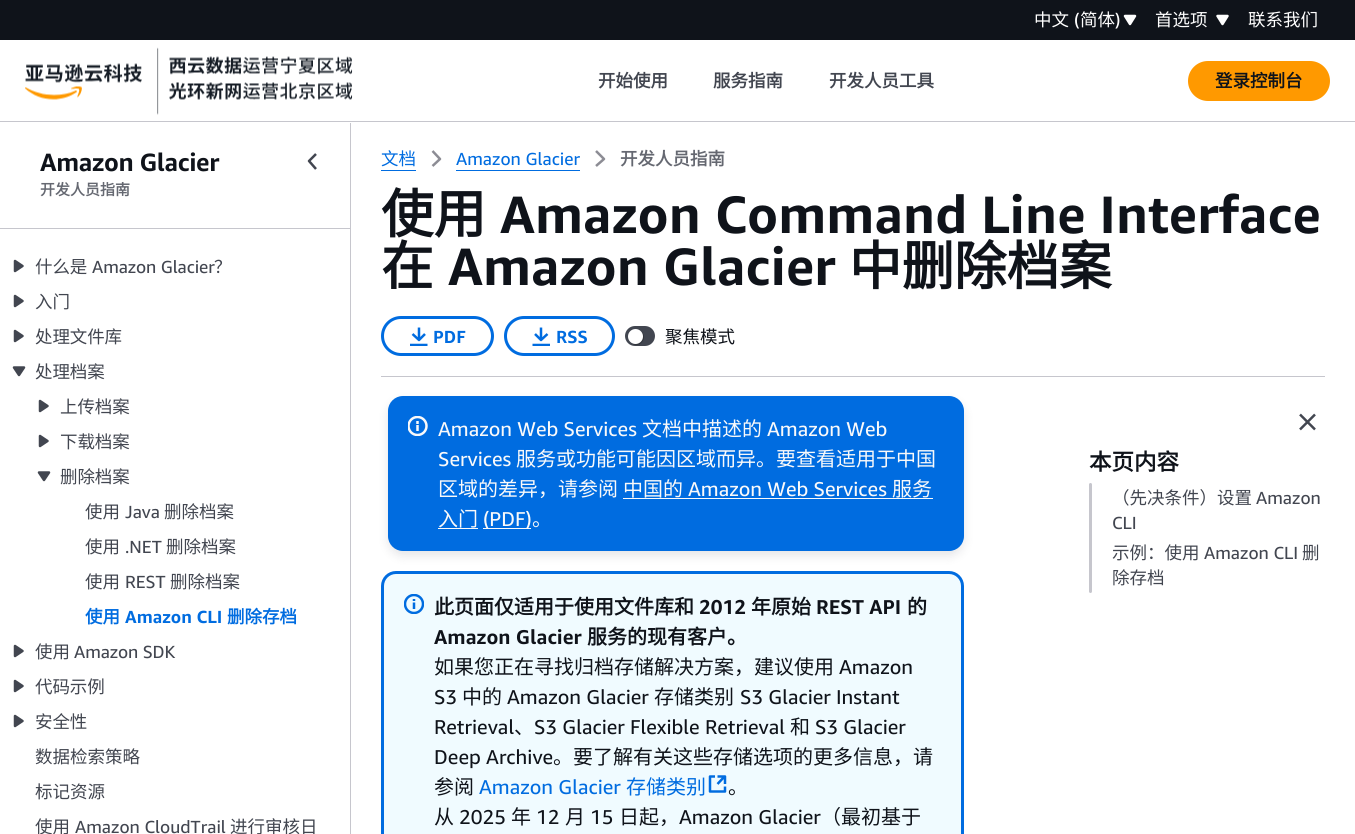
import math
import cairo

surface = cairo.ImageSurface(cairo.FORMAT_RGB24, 1355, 834)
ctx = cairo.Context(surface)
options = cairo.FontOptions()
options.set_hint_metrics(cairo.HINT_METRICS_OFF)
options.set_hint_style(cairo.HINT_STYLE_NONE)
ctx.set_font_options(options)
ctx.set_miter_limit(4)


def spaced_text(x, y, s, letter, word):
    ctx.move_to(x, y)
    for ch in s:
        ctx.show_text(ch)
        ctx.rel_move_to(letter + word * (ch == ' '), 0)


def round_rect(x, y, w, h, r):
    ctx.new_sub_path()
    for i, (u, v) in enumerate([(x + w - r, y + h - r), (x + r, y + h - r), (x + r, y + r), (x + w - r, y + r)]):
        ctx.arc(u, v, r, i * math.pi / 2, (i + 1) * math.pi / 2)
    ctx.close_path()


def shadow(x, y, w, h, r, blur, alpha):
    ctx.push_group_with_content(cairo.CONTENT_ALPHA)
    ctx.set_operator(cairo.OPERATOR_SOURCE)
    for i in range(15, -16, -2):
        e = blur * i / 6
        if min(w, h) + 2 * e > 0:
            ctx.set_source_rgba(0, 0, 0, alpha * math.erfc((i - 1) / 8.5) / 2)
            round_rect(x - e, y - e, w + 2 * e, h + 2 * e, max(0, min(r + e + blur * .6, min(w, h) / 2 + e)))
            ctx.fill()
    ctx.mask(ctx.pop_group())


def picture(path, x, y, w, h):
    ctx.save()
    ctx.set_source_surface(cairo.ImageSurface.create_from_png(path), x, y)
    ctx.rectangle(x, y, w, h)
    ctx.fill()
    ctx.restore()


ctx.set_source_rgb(1, 1, 1)
ctx.paint()
ctx.set_source_rgb(0.776, 0.776, 0.804)
ctx.rectangle(0, 121, 1355, 1)
ctx.fill()
ctx.set_source_rgb(0.059, 0.078, 0.102)
ctx.rectangle(0, 0, 1355, 40)
ctx.fill()
ctx.select_font_face("Noto Sans CJK SC")
ctx.set_font_size(17.5)
ctx.set_source_rgb(1, 1, 1)
ctx.move_to(1034, 26)
ctx.show_text("中文")
ctx.select_font_face("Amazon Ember")
ctx.move_to(1074, 26)
ctx.show_text("(")
ctx.select_font_face("Noto Sans CJK SC")
ctx.move_to(1080, 26)
ctx.show_text("简体")
ctx.select_font_face("Amazon Ember")
ctx.move_to(1115, 26)
ctx.show_text(")")
ctx.new_path()
ctx.move_to(1130, 24)
ctx.line_to(1135, 16)
ctx.line_to(1125, 16)
ctx.close_path()
ctx.fill_preserve()
ctx.set_line_width(2.5)
ctx.set_line_join(cairo.LINE_JOIN_ROUND)
ctx.stroke()
ctx.select_font_face("Noto Sans CJK SC")
ctx.move_to(1155, 26)
ctx.show_text("首选项")
ctx.new_path()
ctx.move_to(1222.5, 24)
ctx.line_to(1227.5, 16)
ctx.line_to(1217.5, 16)
ctx.close_path()
ctx.fill_preserve()
ctx.stroke()
ctx.move_to(1248, 26)
ctx.show_text("联系我们")
picture("img1.png", 25, 47, 328, 68)
ctx.select_font_face("Noto Sans CJK SC", cairo.FONT_SLANT_NORMAL, cairo.FONT_WEIGHT_BOLD)
ctx.set_source_rgb(0.259, 0.275, 0.314)
ctx.move_to(598, 87)
ctx.show_text("开始使用")
ctx.move_to(713, 87)
ctx.show_text("服务指南")
ctx.move_to(829, 87)
ctx.show_text("开发人员工具")
ctx.set_source_rgb(1, 0.6, 0)
round_rect(1189.5, 62.5, 139, 37, 18.5)
ctx.fill_preserve()
ctx.set_line_width(3)
ctx.set_line_join(cairo.LINE_JOIN_MITER)
ctx.stroke()
ctx.set_source_rgb(0.059, 0.078, 0.102)
ctx.move_to(1215, 87)
ctx.show_text("登录控制台")
ctx.set_source_rgb(0.776, 0.776, 0.804)
ctx.rectangle(350, 123, 1, 711)
ctx.fill()
ctx.rectangle(0, 228, 350, 1)
ctx.fill()
ctx.select_font_face("Amazon Ember", cairo.FONT_SLANT_NORMAL, cairo.FONT_WEIGHT_BOLD)
ctx.set_font_size(25)
ctx.set_source_rgb(0.059, 0.078, 0.102)
spaced_text(40, 171, "Amazon Glacier", -0.4, 0)
ctx.select_font_face("Noto Sans CJK SC", cairo.FONT_SLANT_NORMAL, cairo.FONT_WEIGHT_BOLD)
ctx.set_font_size(15)
ctx.set_source_rgb(0.396, 0.408, 0.443)
ctx.move_to(40, 195)
ctx.show_text("开发人员指南")
ctx.set_source_rgb(0.259, 0.275, 0.314)
ctx.new_path()
ctx.move_to(22.5, 266)
ctx.line_to(15, 261)
ctx.line_to(15, 271)
ctx.close_path()
ctx.fill_preserve()
ctx.set_line_width(2.5)
ctx.set_line_join(cairo.LINE_JOIN_ROUND)
ctx.stroke()
ctx.select_font_face("Noto Sans CJK SC")
ctx.set_font_size(17.5)
spaced_text(35, 273, "什么是", -0.1, 0)
ctx.select_font_face("Amazon Ember")
spaced_text(92, 273, "Amazon Glacier", -0.1, 0)
ctx.select_font_face("Noto Sans CJK SC")
spaced_text(214, 273, "？", -0.1, 0)
ctx.new_path()
ctx.move_to(22.5, 301)
ctx.line_to(15, 296)
ctx.line_to(15, 306)
ctx.close_path()
ctx.fill_preserve()
ctx.stroke()
spaced_text(35, 308, "入门", -0.1, 0)
ctx.new_path()
ctx.move_to(22.5, 336)
ctx.line_to(15, 331)
ctx.line_to(15, 341)
ctx.close_path()
ctx.fill_preserve()
ctx.stroke()
spaced_text(35, 343, "处理文件库", -0.1, 0)
ctx.new_path()
ctx.move_to(19, 375)
ctx.line_to(24, 367.5)
ctx.line_to(14, 367.5)
ctx.close_path()
ctx.fill_preserve()
ctx.stroke()
spaced_text(35, 378, "处理档案", -0.1, 0)
ctx.new_path()
ctx.move_to(47.5, 406)
ctx.line_to(40, 401)
ctx.line_to(40, 411)
ctx.close_path()
ctx.fill_preserve()
ctx.stroke()
spaced_text(60, 413, "上传档案", -0.1, 0)
ctx.new_path()
ctx.move_to(47.5, 441)
ctx.line_to(40, 436)
ctx.line_to(40, 446)
ctx.close_path()
ctx.fill_preserve()
ctx.stroke()
spaced_text(60, 448, "下载档案", -0.1, 0)
ctx.new_path()
ctx.move_to(44, 480)
ctx.line_to(49, 472.5)
ctx.line_to(39, 472.5)
ctx.close_path()
ctx.fill_preserve()
ctx.stroke()
spaced_text(60, 483, "删除档案", -0.1, 0)
ctx.move_to(85, 518)
ctx.show_text("使用")
ctx.select_font_face("Amazon Ember")
ctx.move_to(125, 518)
ctx.show_text("Java")
ctx.select_font_face("Noto Sans CJK SC")
ctx.move_to(164, 518)
ctx.show_text("删除档案")
ctx.move_to(85, 553)
ctx.show_text("使用")
ctx.select_font_face("Amazon Ember")
ctx.move_to(125, 553)
ctx.show_text(".NET")
ctx.select_font_face("Noto Sans CJK SC")
ctx.move_to(166, 553)
ctx.show_text("删除档案")
ctx.move_to(85, 588)
ctx.show_text("使用")
ctx.select_font_face("Amazon Ember")
ctx.move_to(125, 588)
ctx.show_text("REST")
ctx.select_font_face("Noto Sans CJK SC")
ctx.move_to(170, 588)
ctx.show_text("删除档案")
ctx.select_font_face("Noto Sans CJK SC", cairo.FONT_SLANT_NORMAL, cairo.FONT_WEIGHT_BOLD)
ctx.set_source_rgb(0, 0.424, 0.878)
ctx.move_to(85, 623)
ctx.show_text("使用")
ctx.select_font_face("Amazon Ember", cairo.FONT_SLANT_NORMAL, cairo.FONT_WEIGHT_BOLD)
ctx.move_to(125, 623)
ctx.show_text("Amazon CLI")
ctx.select_font_face("Noto Sans CJK SC", cairo.FONT_SLANT_NORMAL, cairo.FONT_WEIGHT_BOLD)
ctx.move_to(227, 623)
ctx.show_text("删除存档")
ctx.set_source_rgb(0.259, 0.275, 0.314)
ctx.new_path()
ctx.move_to(22.5, 651)
ctx.line_to(15, 646)
ctx.line_to(15, 656)
ctx.close_path()
ctx.fill_preserve()
ctx.stroke()
ctx.select_font_face("Noto Sans CJK SC")
spaced_text(35, 658, "使用", -0.1, 0)
ctx.select_font_face("Amazon Ember")
spaced_text(74, 658, "Amazon SDK", -0.1, 0)
ctx.new_path()
ctx.move_to(22.5, 686)
ctx.line_to(15, 681)
ctx.line_to(15, 691)
ctx.close_path()
ctx.fill_preserve()
ctx.stroke()
ctx.select_font_face("Noto Sans CJK SC")
spaced_text(35, 693, "代码示例", -0.1, 0)
ctx.new_path()
ctx.move_to(22.5, 721)
ctx.line_to(15, 716)
ctx.line_to(15, 726)
ctx.close_path()
ctx.fill_preserve()
ctx.stroke()
spaced_text(35, 728, "安全性", -0.1, 0)
ctx.move_to(35, 763)
ctx.show_text("数据检索策略")
ctx.move_to(35, 798)
ctx.show_text("标记资源")
ctx.move_to(35, 833)
ctx.show_text("使用")
ctx.select_font_face("Amazon Ember")
ctx.move_to(75, 833)
ctx.show_text("Amazon CloudTrail")
ctx.select_font_face("Noto Sans CJK SC")
ctx.move_to(230, 833)
ctx.show_text("进行审核日")
ctx.new_path()
ctx.move_to(316, 154)
ctx.line_to(309, 161)
ctx.line_to(316, 169)
ctx.stroke()
ctx.set_source_rgb(0, 0.424, 0.878)
ctx.move_to(381, 165)
ctx.show_text("文档")
ctx.rectangle(381, 170, 35, 1)
ctx.fill()
ctx.new_path()
ctx.move_to(432.5, 151)
ctx.line_to(440, 159)
ctx.line_to(432.5, 166)
ctx.set_source_rgb(0.549, 0.549, 0.58)
ctx.stroke()
ctx.select_font_face("Amazon Ember")
ctx.set_source_rgb(0, 0.424, 0.878)
ctx.move_to(456, 165)
ctx.show_text("Amazon Glacier")
ctx.rectangle(456, 170, 124, 1)
ctx.fill()
ctx.new_path()
ctx.move_to(596, 151)
ctx.line_to(604, 159)
ctx.line_to(596, 166)
ctx.set_source_rgb(0.549, 0.549, 0.58)
ctx.stroke()
ctx.select_font_face("Noto Sans CJK SC", cairo.FONT_SLANT_NORMAL, cairo.FONT_WEIGHT_BOLD)
ctx.set_source_rgb(0.396, 0.408, 0.443)
ctx.move_to(620, 165)
ctx.show_text("开发人员指南")
ctx.set_source_rgb(0.776, 0.776, 0.804)
ctx.rectangle(381, 376, 944, 1)
ctx.fill()
ctx.set_font_size(52.5)
ctx.set_source_rgb(0.059, 0.078, 0.102)
ctx.move_to(381, 233)
ctx.show_text("使用")
ctx.select_font_face("Amazon Ember", cairo.FONT_SLANT_NORMAL, cairo.FONT_WEIGHT_BOLD)
ctx.move_to(500, 233)
ctx.show_text("Amazon Command Line Interface")
ctx.select_font_face("Noto Sans CJK SC", cairo.FONT_SLANT_NORMAL, cairo.FONT_WEIGHT_BOLD)
ctx.move_to(381, 285)
ctx.show_text("在")
ctx.select_font_face("Amazon Ember", cairo.FONT_SLANT_NORMAL, cairo.FONT_WEIGHT_BOLD)
ctx.move_to(448, 285)
ctx.show_text("Amazon Glacier")
ctx.select_font_face("Noto Sans CJK SC", cairo.FONT_SLANT_NORMAL, cairo.FONT_WEIGHT_BOLD)
ctx.move_to(849, 285)
ctx.show_text("中删除档案")
round_rect(382.5, 317.5, 110, 37, 18.5)
ctx.set_source_rgb(0, 0.424, 0.878)
ctx.set_line_width(3)
ctx.set_line_join(cairo.LINE_JOIN_MITER)
ctx.stroke()
ctx.save()
ctx.rectangle(409, 326, 20, 20)
ctx.clip()
ctx.new_path()
ctx.move_to(410, 345)
ctx.line_to(427.5, 345)
ctx.move_to(425, 334)
ctx.line_to(419, 340)
ctx.line_to(412.5, 334)
ctx.move_to(419, 339)
ctx.line_to(419, 327.5)
ctx.set_line_width(2.5)
ctx.set_line_join(cairo.LINE_JOIN_ROUND)
ctx.stroke()
ctx.restore()
ctx.select_font_face("Amazon Ember", cairo.FONT_SLANT_NORMAL, cairo.FONT_WEIGHT_BOLD)
ctx.set_font_size(17.5)
ctx.move_to(433, 343)
ctx.show_text("PDF")
round_rect(505.5, 317.5, 108, 37, 18.5)
ctx.stroke()
ctx.save()
ctx.rectangle(531, 326, 20, 20)
ctx.clip()
ctx.new_path()
ctx.move_to(532.5, 345)
ctx.line_to(550, 345)
ctx.move_to(547.5, 334)
ctx.line_to(541, 340)
ctx.line_to(535, 334)
ctx.move_to(541, 339)
ctx.line_to(541, 327.5)
ctx.set_line_width(2.5)
ctx.set_line_join(cairo.LINE_JOIN_ROUND)
ctx.stroke()
ctx.restore()
ctx.move_to(556, 343)
ctx.show_text("RSS")
ctx.set_source_rgb(0.259, 0.275, 0.314)
round_rect(625, 326, 30, 20, 10)
ctx.fill()
ctx.set_source_rgb(0.196, 0.208, 0.235)
ctx.new_path()
ctx.move_to(631, 342.5)
ctx.curve_to(638.5, 351, 650, 337, 640.5, 331)
ctx.curve_to(646.5, 337.5, 638, 347, 631, 342.5)
ctx.close_path()
ctx.fill()
ctx.set_source_rgb(1, 1, 1)
ctx.arc(635.5, 336.5, 7.5, 0, 2 * math.pi)
ctx.fill()
ctx.select_font_face("Noto Sans CJK SC")
ctx.set_source_rgb(0.059, 0.078, 0.102)
ctx.move_to(665, 343)
ctx.show_text("聚焦模式")
ctx.set_source_rgb(0, 0.027, 0.086)
shadow(388, 401, 576, 155, 15, 5, 0.1)
ctx.set_source_rgb(0, 0.424, 0.878)
round_rect(388, 396, 576, 155, 15)
ctx.fill()
ctx.save()
ctx.rectangle(408, 416, 20, 20)
ctx.clip()
ctx.arc(417.5, 426, 9, 0, 2 * math.pi)
ctx.set_source_rgb(0.976, 0.976, 0.98)
ctx.set_line_width(2.5)
ctx.stroke()
ctx.restore()
ctx.new_path()
ctx.move_to(417.5, 431)
ctx.line_to(417.5, 425)
ctx.move_to(417.5, 424)
ctx.line_to(417.5, 421)
ctx.set_source_rgb(0.976, 0.976, 0.98)
ctx.set_line_width(2.5)
ctx.stroke()
ctx.select_font_face("Amazon Ember")
ctx.set_font_size(20)
ctx.move_to(438, 436)
ctx.show_text("Amazon Web Services")
ctx.select_font_face("Noto Sans CJK SC")
ctx.move_to(642, 436)
ctx.show_text("文档中描述的")
ctx.select_font_face("Amazon Ember")
ctx.move_to(767, 436)
ctx.show_text("Amazon Web")
ctx.move_to(438, 466)
ctx.show_text("Services")
ctx.select_font_face("Noto Sans CJK SC")
ctx.move_to(516, 466)
ctx.show_text("服务或功能可能因区域而异。要查看适用于中国")
ctx.move_to(438, 496)
ctx.show_text("区域的差异，请参阅")
ctx.move_to(623, 496)
ctx.show_text("中国的")
ctx.select_font_face("Amazon Ember")
ctx.move_to(688, 496)
ctx.show_text("Amazon Web Services")
ctx.rectangle(623, 498, 310, 1)
ctx.fill()
ctx.select_font_face("Noto Sans CJK SC")
ctx.move_to(892, 496)
ctx.show_text("服务")
ctx.move_to(438, 526)
ctx.show_text("入门")
ctx.rectangle(438, 528, 40, 1)
ctx.fill()
ctx.rectangle(483, 528, 48, 1)
ctx.fill()
ctx.select_font_face("Amazon Ember")
ctx.move_to(483, 526)
ctx.show_text("(PDF)")
ctx.select_font_face("Noto Sans CJK SC")
ctx.move_to(532, 526)
ctx.show_text("。")
ctx.set_source_rgb(0.941, 0.984, 1)
round_rect(382.5, 572.5, 580, 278, 13.5)
ctx.fill_preserve()
ctx.set_source_rgb(0, 0.424, 0.878)
ctx.set_line_width(3)
ctx.stroke()
ctx.save()
ctx.rectangle(404, 594, 20, 20)
ctx.clip()
ctx.arc(414, 604, 9, 0, 2 * math.pi)
ctx.set_line_width(2.5)
ctx.stroke()
ctx.restore()
ctx.new_path()
ctx.move_to(414, 609)
ctx.line_to(414, 602.5)
ctx.move_to(414, 601)
ctx.line_to(414, 599)
ctx.set_line_width(2.5)
ctx.stroke()
ctx.select_font_face("Noto Sans CJK SC", cairo.FONT_SLANT_NORMAL, cairo.FONT_WEIGHT_BOLD)
ctx.set_source_rgb(0.059, 0.078, 0.102)
ctx.move_to(434, 614)
ctx.show_text("此页面仅适用于使用文件库和")
ctx.select_font_face("Amazon Ember", cairo.FONT_SLANT_NORMAL, cairo.FONT_WEIGHT_BOLD)
ctx.move_to(699, 614)
ctx.show_text("2012")
ctx.select_font_face("Noto Sans CJK SC", cairo.FONT_SLANT_NORMAL, cairo.FONT_WEIGHT_BOLD)
ctx.move_to(751, 614)
ctx.show_text("年原始")
ctx.select_font_face("Amazon Ember", cairo.FONT_SLANT_NORMAL, cairo.FONT_WEIGHT_BOLD)
ctx.move_to(816, 614)
ctx.show_text("REST API")
ctx.select_font_face("Noto Sans CJK SC", cairo.FONT_SLANT_NORMAL, cairo.FONT_WEIGHT_BOLD)
ctx.move_to(907, 614)
ctx.show_text("的")
ctx.select_font_face("Amazon Ember", cairo.FONT_SLANT_NORMAL, cairo.FONT_WEIGHT_BOLD)
ctx.move_to(434, 644)
ctx.show_text("Amazon Glacier")
ctx.select_font_face("Noto Sans CJK SC", cairo.FONT_SLANT_NORMAL, cairo.FONT_WEIGHT_BOLD)
ctx.move_to(587, 644)
ctx.show_text("服务的现有客户。")
ctx.select_font_face("Noto Sans CJK SC")
ctx.move_to(434, 674)
ctx.show_text("如果您正在寻找归档存储解决方案，建议使用")
ctx.select_font_face("Amazon Ember")
ctx.move_to(839, 674)
ctx.show_text("Amazon")
ctx.move_to(434, 704)
ctx.show_text("S3")
ctx.select_font_face("Noto Sans CJK SC")
ctx.move_to(462, 704)
ctx.show_text("中的")
ctx.select_font_face("Amazon Ember")
ctx.move_to(507, 704)
ctx.show_text("Amazon Glacier")
ctx.select_font_face("Noto Sans CJK SC")
ctx.move_to(654, 704)
ctx.show_text("存储类别")
ctx.select_font_face("Amazon Ember")
ctx.move_to(740, 704)
ctx.show_text("S3 Glacier Instant")
ctx.move_to(434, 734)
ctx.show_text("Retrieval")
ctx.select_font_face("Noto Sans CJK SC")
ctx.move_to(514, 734)
ctx.show_text("、")
ctx.select_font_face("Amazon Ember")
ctx.move_to(534, 734)
ctx.show_text("S3 Glacier Flexible Retrieval")
ctx.select_font_face("Noto Sans CJK SC")
ctx.move_to(790, 734)
ctx.show_text("和")
ctx.select_font_face("Amazon Ember")
ctx.move_to(815, 734)
ctx.show_text("S3 Glacier")
ctx.move_to(434, 764)
ctx.show_text("Deep Archive")
ctx.select_font_face("Noto Sans CJK SC")
ctx.move_to(553, 764)
ctx.show_text("。要了解有关这些存储选项的更多信息，请")
ctx.move_to(434, 794)
ctx.show_text("参阅")
ctx.select_font_face("Amazon Ember")
ctx.set_source_rgb(0, 0.424, 0.878)
ctx.move_to(479, 794)
ctx.show_text("Amazon Glacier")
ctx.select_font_face("Noto Sans CJK SC")
ctx.move_to(626, 794)
ctx.show_text("存储类别")
ctx.new_path()
ctx.move_to(725, 784)
ctx.line_to(725, 776.5)
ctx.line_to(717.5, 776.5)
ctx.move_to(725, 776)
ctx.line_to(717.5, 784)
ctx.move_to(715, 776.5)
ctx.line_to(710, 776.5)
ctx.line_to(710, 791.5)
ctx.line_to(725, 791.5)
ctx.line_to(725, 786.5)
ctx.set_line_join(cairo.LINE_JOIN_ROUND)
ctx.stroke()
ctx.set_source_rgb(0.059, 0.078, 0.102)
ctx.move_to(728, 794)
ctx.show_text("。")
ctx.move_to(434, 824)
ctx.show_text("从")
ctx.select_font_face("Amazon Ember")
ctx.move_to(459, 824)
ctx.show_text("2025")
ctx.select_font_face("Noto Sans CJK SC")
ctx.move_to(511, 824)
ctx.show_text("年")
ctx.select_font_face("Amazon Ember")
ctx.move_to(536, 824)
ctx.show_text("12")
ctx.select_font_face("Noto Sans CJK SC")
ctx.move_to(565, 824)
ctx.show_text("月")
ctx.select_font_face("Amazon Ember")
ctx.move_to(590, 824)
ctx.show_text("15")
ctx.select_font_face("Noto Sans CJK SC")
ctx.move_to(619, 824)
ctx.show_text("日起，")
ctx.select_font_face("Amazon Ember")
ctx.move_to(679, 824)
ctx.show_text("Amazon Glacier")
ctx.select_font_face("Noto Sans CJK SC")
ctx.move_to(821, 824)
ctx.show_text("（最初基于")
ctx.new_path()
ctx.move_to(1300, 414.5)
ctx.line_to(1315, 429.5)
ctx.move_to(1300, 429.5)
ctx.line_to(1315, 414.5)
ctx.set_source_rgb(0.259, 0.275, 0.314)
ctx.stroke()
ctx.select_font_face("Noto Sans CJK SC", cairo.FONT_SLANT_NORMAL, cairo.FONT_WEIGHT_BOLD)
ctx.set_font_size(22.5)
ctx.set_source_rgb(0.059, 0.078, 0.102)
ctx.move_to(1089, 470)
ctx.show_text("本页内容")
ctx.set_source_rgb(0.776, 0.776, 0.804)
round_rect(1089, 483, 3, 110, 1.5)
ctx.fill()
ctx.select_font_face("Noto Sans CJK SC")
ctx.set_font_size(17.5)
ctx.set_source_rgb(0.259, 0.275, 0.314)
ctx.move_to(1112, 504)
ctx.show_text("（先决条件）设置")
ctx.select_font_face("Amazon Ember")
ctx.move_to(1256, 504)
ctx.show_text("Amazon")
ctx.move_to(1112, 529)
ctx.show_text("CLI")
ctx.select_font_face("Noto Sans CJK SC")
ctx.move_to(1112, 559)
ctx.show_text("示例：使用")
ctx.select_font_face("Amazon Ember")
ctx.move_to(1204, 559)
ctx.show_text("Amazon CLI")
ctx.select_font_face("Noto Sans CJK SC")
ctx.move_to(1302, 559)
ctx.show_text("删")
ctx.move_to(1112, 584)
ctx.show_text("除存档")
surface.write_to_png("page.png")
